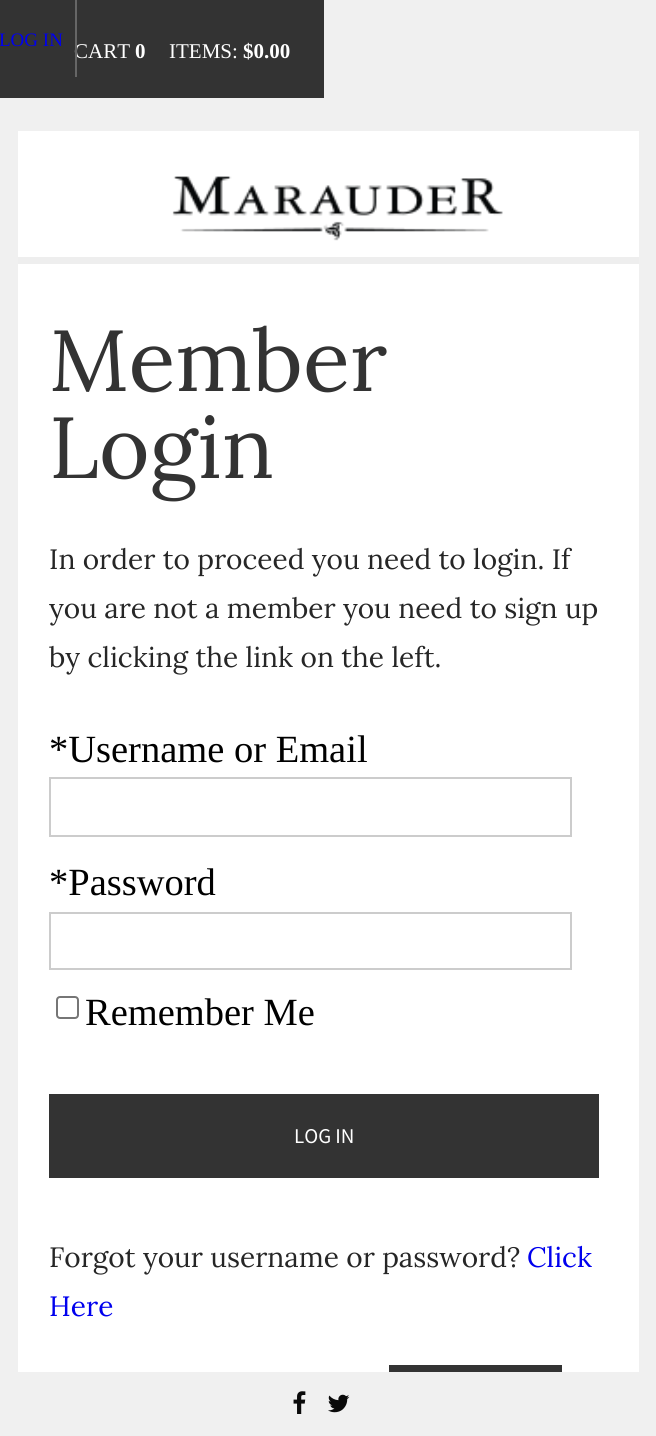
import math
import cairo

surface = cairo.ImageSurface(cairo.FORMAT_RGB24, 656, 1436)
ctx = cairo.Context(surface)
options = cairo.FontOptions()
options.set_hint_metrics(cairo.HINT_METRICS_OFF)
options.set_hint_style(cairo.HINT_STYLE_NONE)
ctx.set_font_options(options)
ctx.set_miter_limit(4)


def round_rect(x, y, w, h, r):
    ctx.new_sub_path()
    for i, (u, v) in enumerate([(x + w - r, y + h - r), (x + r, y + h - r), (x + r, y + r), (x + w - r, y + r)]):
        ctx.arc(u, v, r, i * math.pi / 2, (i + 1) * math.pi / 2)
    ctx.close_path()


def picture(path, x, y, w, h):
    ctx.save()
    ctx.set_source_surface(cairo.ImageSurface.create_from_png(path), x, y)
    ctx.rectangle(x, y, w, h)
    ctx.fill()
    ctx.restore()


ctx.set_source_rgb(0.941, 0.941, 0.941)
ctx.paint()
ctx.set_source_rgb(0.2, 0.2, 0.2)
ctx.rectangle(0, 0, 324, 98)
ctx.fill()
ctx.select_font_face("Liberation Serif")
ctx.set_font_size(21)
ctx.set_source_rgb(1, 1, 1)
ctx.move_to(74, 58)
ctx.show_text("CART")
ctx.set_source_rgb(0.4, 0.4, 0.4)
ctx.rectangle(75, 0, 2, 77)
ctx.fill()
ctx.set_font_size(19)
ctx.set_source_rgb(0, 0, 0.933)
ctx.move_to(-1, 46)
ctx.show_text("LOG IN")
ctx.select_font_face("Liberation Serif", cairo.FONT_SLANT_NORMAL, cairo.FONT_WEIGHT_BOLD)
ctx.set_font_size(21)
ctx.set_source_rgb(1, 1, 1)
ctx.move_to(135, 58)
ctx.show_text("0")
ctx.select_font_face("Liberation Serif")
ctx.move_to(169, 58)
ctx.show_text("ITEMS:")
ctx.select_font_face("Liberation Serif", cairo.FONT_SLANT_NORMAL, cairo.FONT_WEIGHT_BOLD)
ctx.move_to(243, 58)
ctx.show_text("$0.00")
ctx.rectangle(18, 131, 621, 1241)
ctx.fill()
ctx.set_source_rgb(0.933, 0.933, 0.933)
ctx.new_path()
ctx.move_to(18, 259)
ctx.line_to(18, 264)
ctx.line_to(639, 264)
ctx.line_to(639, 137)
ctx.line_to(639, 259)
ctx.close_path()
ctx.fill()
ctx.rectangle(18, 257, 621, 2)
ctx.fill()
picture("img1.png", 172, 176, 331, 65)
ctx.select_font_face("Lora")
ctx.set_font_size(86.5)
ctx.set_source_rgb(0.2, 0.2, 0.2)
ctx.move_to(49, 391)
ctx.show_text("Member")
ctx.move_to(49, 478)
ctx.show_text("Login")
ctx.set_font_size(28)
ctx.set_source_rgb(0.149, 0.149, 0.149)
ctx.move_to(49, 569)
ctx.show_text("In order to proceed you need to login. If")
ctx.move_to(49, 618)
ctx.show_text("you are not a member you need to sign up")
ctx.move_to(49, 667)
ctx.show_text("by clicking the link on the left.")
ctx.select_font_face("Liberation Serif")
ctx.set_font_size(38.5)
ctx.set_source_rgb(0, 0, 0)
ctx.move_to(49, 762)
ctx.show_text("*Username or Email")
ctx.rectangle(50, 778, 521, 58)
ctx.set_source_rgb(0.8, 0.8, 0.8)
ctx.stroke()
ctx.set_source_rgb(0, 0, 0)
ctx.move_to(49, 895)
ctx.show_text("*Password")
ctx.rectangle(50, 913, 521, 56)
ctx.set_source_rgb(0.8, 0.8, 0.8)
ctx.stroke()
round_rect(57, 997, 21, 21, 3)
ctx.set_source_rgb(0.463, 0.463, 0.463)
ctx.stroke()
ctx.set_source_rgb(0, 0, 0)
ctx.move_to(85, 1025)
ctx.show_text("Remember Me")
ctx.set_source_rgb(0.2, 0.2, 0.2)
ctx.rectangle(49, 1094, 550, 84)
ctx.fill()
ctx.select_font_face("Source Sans Pro")
ctx.set_font_size(21)
ctx.set_source_rgb(1, 1, 1)
ctx.move_to(294, 1143)
ctx.show_text("LOG IN")
ctx.select_font_face("Lora")
ctx.set_font_size(28)
ctx.set_source_rgb(0.149, 0.149, 0.149)
ctx.move_to(49, 1267)
ctx.show_text("Forgot your username or password?")
ctx.set_source_rgb(0, 0, 0.933)
ctx.move_to(527, 1267)
ctx.show_text("Click")
ctx.move_to(49, 1316)
ctx.show_text("Here")
ctx.set_source_rgb(0.2, 0.2, 0.2)
ctx.rectangle(389, 1365, 173, 7)
ctx.fill()
picture("img2.png", 293, 1391, 13, 23)
picture("img3.png", 328, 1394, 22, 19)
surface.write_to_png("page.png")
